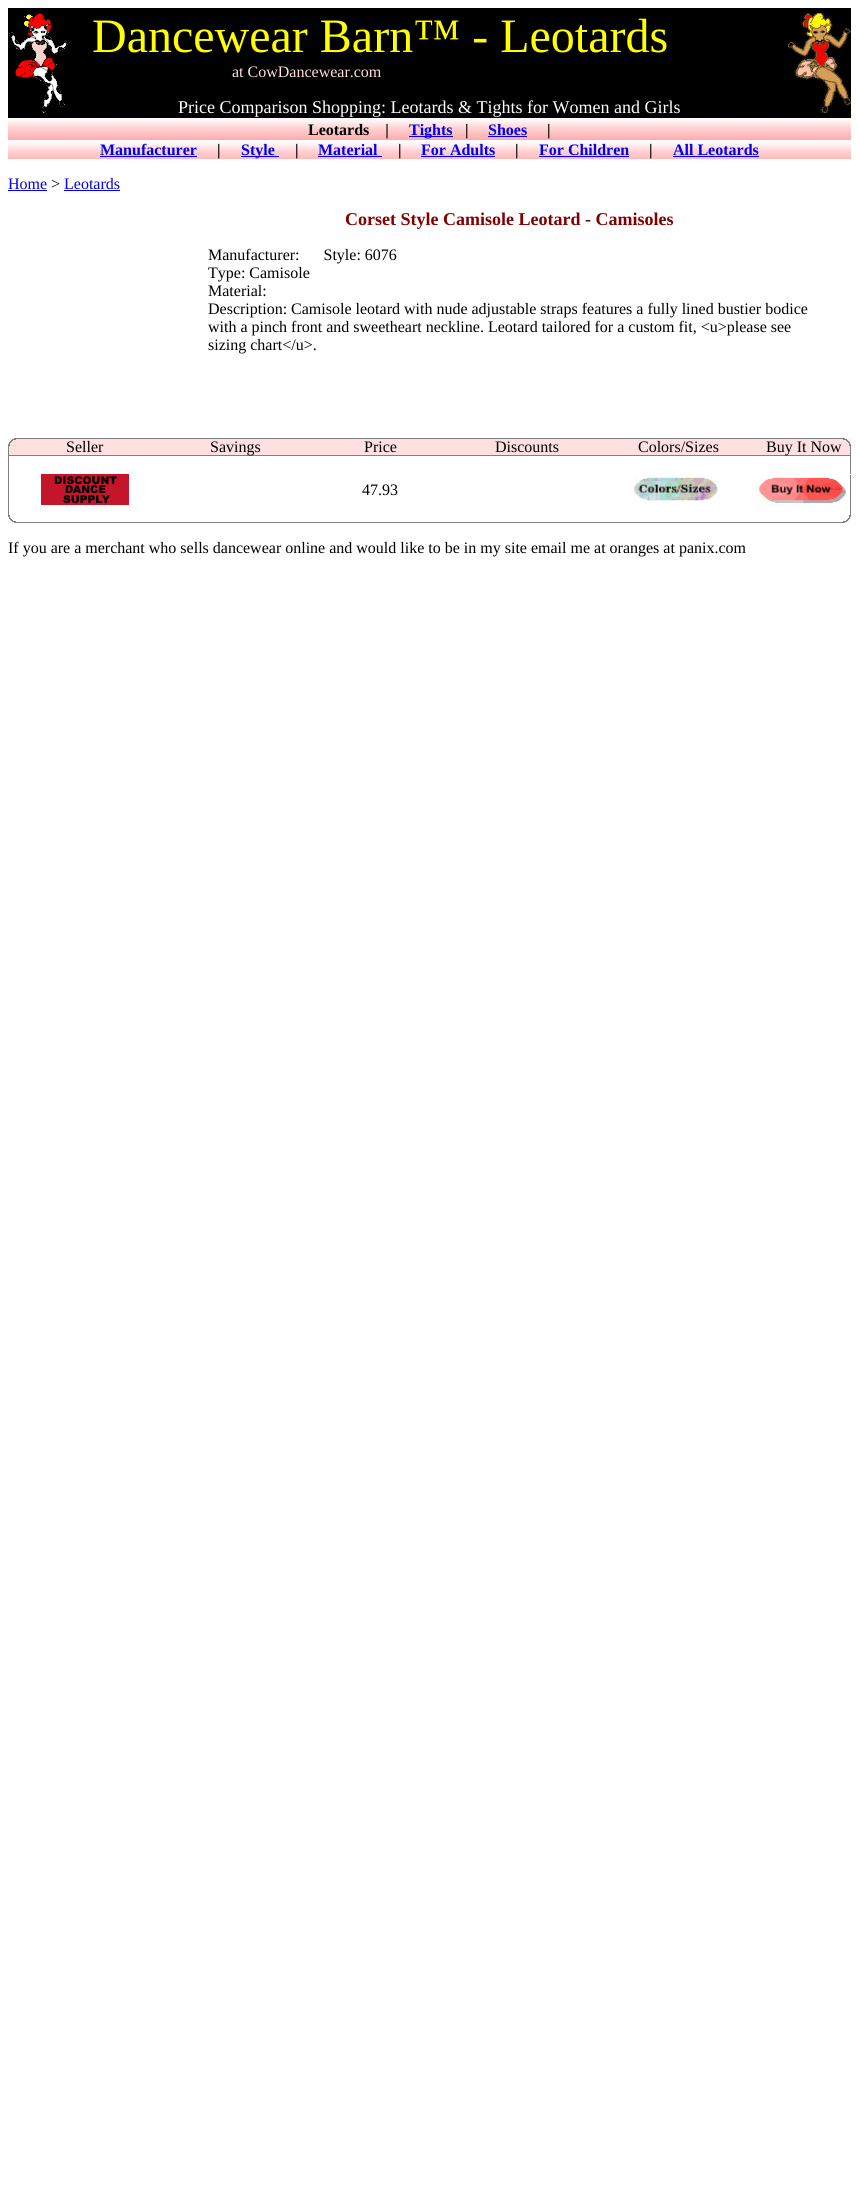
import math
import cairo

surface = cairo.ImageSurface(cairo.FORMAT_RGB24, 859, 2204)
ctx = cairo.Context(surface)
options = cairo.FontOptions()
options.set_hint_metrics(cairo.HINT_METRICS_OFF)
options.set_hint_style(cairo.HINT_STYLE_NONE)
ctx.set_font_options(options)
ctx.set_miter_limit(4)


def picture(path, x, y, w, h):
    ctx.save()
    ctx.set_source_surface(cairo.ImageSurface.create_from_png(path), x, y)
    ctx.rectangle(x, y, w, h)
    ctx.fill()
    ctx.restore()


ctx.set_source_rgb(1, 1, 1)
ctx.paint()
ctx.set_source_rgb(0, 0, 0)
ctx.rectangle(8, 8, 843, 110)
ctx.fill()
picture("img1.png", 9, 13, 61, 100)
ctx.select_font_face("Liberation Serif")
ctx.set_font_size(48)
ctx.set_source_rgb(1, 1, 0)
ctx.move_to(92, 52)
ctx.show_text("Dancewear Barn™ - Leotards")
ctx.set_font_size(16)
ctx.set_source_rgb(1, 0.878, 0.878)
ctx.move_to(232, 77)
ctx.show_text("at CowDancewear.com")
ctx.set_font_size(18)
ctx.set_source_rgb(1, 1, 1)
ctx.move_to(178, 113)
ctx.show_text("Price Comparison Shopping: Leotards & Tights for Women and Girls")
picture("img2.png", 788, 13, 63, 100)
picture("img3.png", 8, 118, 843, 23)
ctx.select_font_face("Liberation Serif", cairo.FONT_SLANT_NORMAL, cairo.FONT_WEIGHT_BOLD)
ctx.set_font_size(16)
ctx.set_source_rgb(0, 0, 0)
ctx.move_to(308, 135)
ctx.show_text("Leotards    |")
ctx.set_source_rgb(0, 0, 0.933)
ctx.rectangle(409, 136, 44, 1)
ctx.fill()
ctx.move_to(409, 135)
ctx.show_text("Tights")
ctx.set_source_rgb(0, 0, 0)
ctx.move_to(465, 135)
ctx.show_text("|")
ctx.set_source_rgb(0, 0, 0.933)
ctx.move_to(488, 135)
ctx.show_text("Shoes")
ctx.rectangle(488, 136, 39, 1)
ctx.fill()
ctx.set_source_rgb(0, 0, 0)
ctx.move_to(547, 135)
ctx.show_text("|")
picture("img4.png", 8, 141, 843, 18)
ctx.set_source_rgb(0, 0, 0.933)
ctx.move_to(100, 155)
ctx.show_text("Manufacturer")
ctx.rectangle(100, 156, 97, 1)
ctx.fill()
ctx.set_source_rgb(0, 0, 0)
ctx.move_to(217, 155)
ctx.show_text("|")
ctx.set_source_rgb(0, 0, 0.933)
ctx.rectangle(241, 156, 38, 1)
ctx.fill()
ctx.move_to(241, 155)
ctx.show_text("Style")
ctx.set_source_rgb(0, 0, 0)
ctx.move_to(295, 155)
ctx.show_text("|")
ctx.set_source_rgb(0, 0, 0.933)
ctx.move_to(318, 155)
ctx.show_text("Material")
ctx.rectangle(318, 156, 64, 1)
ctx.fill()
ctx.set_source_rgb(0, 0, 0)
ctx.move_to(398, 155)
ctx.show_text("|")
ctx.set_source_rgb(0, 0, 0.933)
ctx.move_to(421, 155)
ctx.show_text("For Adults")
ctx.rectangle(421, 156, 74, 1)
ctx.fill()
ctx.set_source_rgb(0, 0, 0)
ctx.move_to(515, 155)
ctx.show_text("|")
ctx.set_source_rgb(0, 0, 0.933)
ctx.move_to(539, 155)
ctx.show_text("For Children")
ctx.rectangle(539, 156, 90, 1)
ctx.fill()
ctx.set_source_rgb(0, 0, 0)
ctx.move_to(649, 155)
ctx.show_text("|")
ctx.set_source_rgb(0, 0, 0.933)
ctx.move_to(673, 155)
ctx.show_text("All Leotards")
ctx.rectangle(673, 156, 86, 1)
ctx.fill()
ctx.select_font_face("Liberation Serif")
ctx.move_to(8, 189)
ctx.show_text("Home")
ctx.rectangle(8, 190, 39, 1)
ctx.fill()
ctx.set_source_rgb(0, 0, 0)
ctx.move_to(51, 189)
ctx.show_text(">")
ctx.set_source_rgb(0, 0, 0.933)
ctx.move_to(64, 189)
ctx.show_text("Leotards")
ctx.rectangle(64, 190, 56, 1)
ctx.fill()
ctx.select_font_face("Liberation Serif", cairo.FONT_SLANT_NORMAL, cairo.FONT_WEIGHT_BOLD)
ctx.set_font_size(18)
ctx.set_source_rgb(0.502, 0, 0)
ctx.move_to(345, 225)
ctx.show_text("Corset Style Camisole Leotard - Camisoles")
ctx.select_font_face("Liberation Serif")
ctx.set_font_size(16)
ctx.set_source_rgb(0, 0, 0)
ctx.move_to(208, 260)
ctx.show_text("Manufacturer:      Style: 6076")
ctx.move_to(208, 278)
ctx.show_text("Type: Camisole")
ctx.move_to(208, 296)
ctx.show_text("Material:")
ctx.move_to(208, 314)
ctx.show_text("Description: Camisole leotard with nude adjustable straps features a fully lined bustier bodice")
ctx.move_to(208, 332)
ctx.show_text("with a pinch front and sweetheart neckline. Leotard tailored for a custom fit, <u>please see")
ctx.move_to(208, 350)
ctx.show_text("sizing chart</u>.")
ctx.set_source_rgb(1, 0.878, 0.878)
ctx.rectangle(9, 439, 841, 16)
ctx.fill()
ctx.set_source_rgb(0.502, 0.502, 0.502)
ctx.rectangle(19, 438, 832, 1)
ctx.fill()
ctx.rectangle(8, 448, 1, 75)
ctx.fill()
ctx.rectangle(9, 455, 841, 1)
ctx.fill()
picture("img5.png", 8, 438, 11, 10)
ctx.set_source_rgb(0, 0, 0)
ctx.move_to(66, 452)
ctx.show_text("Seller")
ctx.move_to(210, 452)
ctx.show_text("Savings")
ctx.move_to(364, 452)
ctx.show_text("Price")
ctx.move_to(495, 452)
ctx.show_text("Discounts")
ctx.move_to(638, 452)
ctx.show_text("Colors/Sizes")
ctx.set_source_rgb(0.502, 0.502, 0.502)
ctx.rectangle(850, 439, 1, 35)
ctx.fill()
picture("img6.png", 843, 438, 8, 8)
ctx.set_source_rgb(0, 0, 0)
ctx.move_to(766, 452)
ctx.show_text("Buy It Now")
picture("img7.png", 41, 474, 88, 31)
ctx.move_to(362, 495)
ctx.show_text("47.93")
picture("img8.png", 631, 475, 87, 30)
ctx.set_source_rgb(0.502, 0.502, 0.502)
ctx.rectangle(850, 475, 1, 48)
ctx.fill()
picture("img9.png", 756, 475, 90, 30)
ctx.rectangle(9, 522, 841, 1)
ctx.fill()
picture("img10.png", 8, 515, 8, 8)
picture("img11.png", 843, 515, 8, 8)
ctx.set_source_rgb(0, 0, 0)
ctx.move_to(8, 553)
ctx.show_text("If you are a merchant who sells dancewear online and would like to be in my site email me at oranges at panix.com")
surface.write_to_png("page.png")
